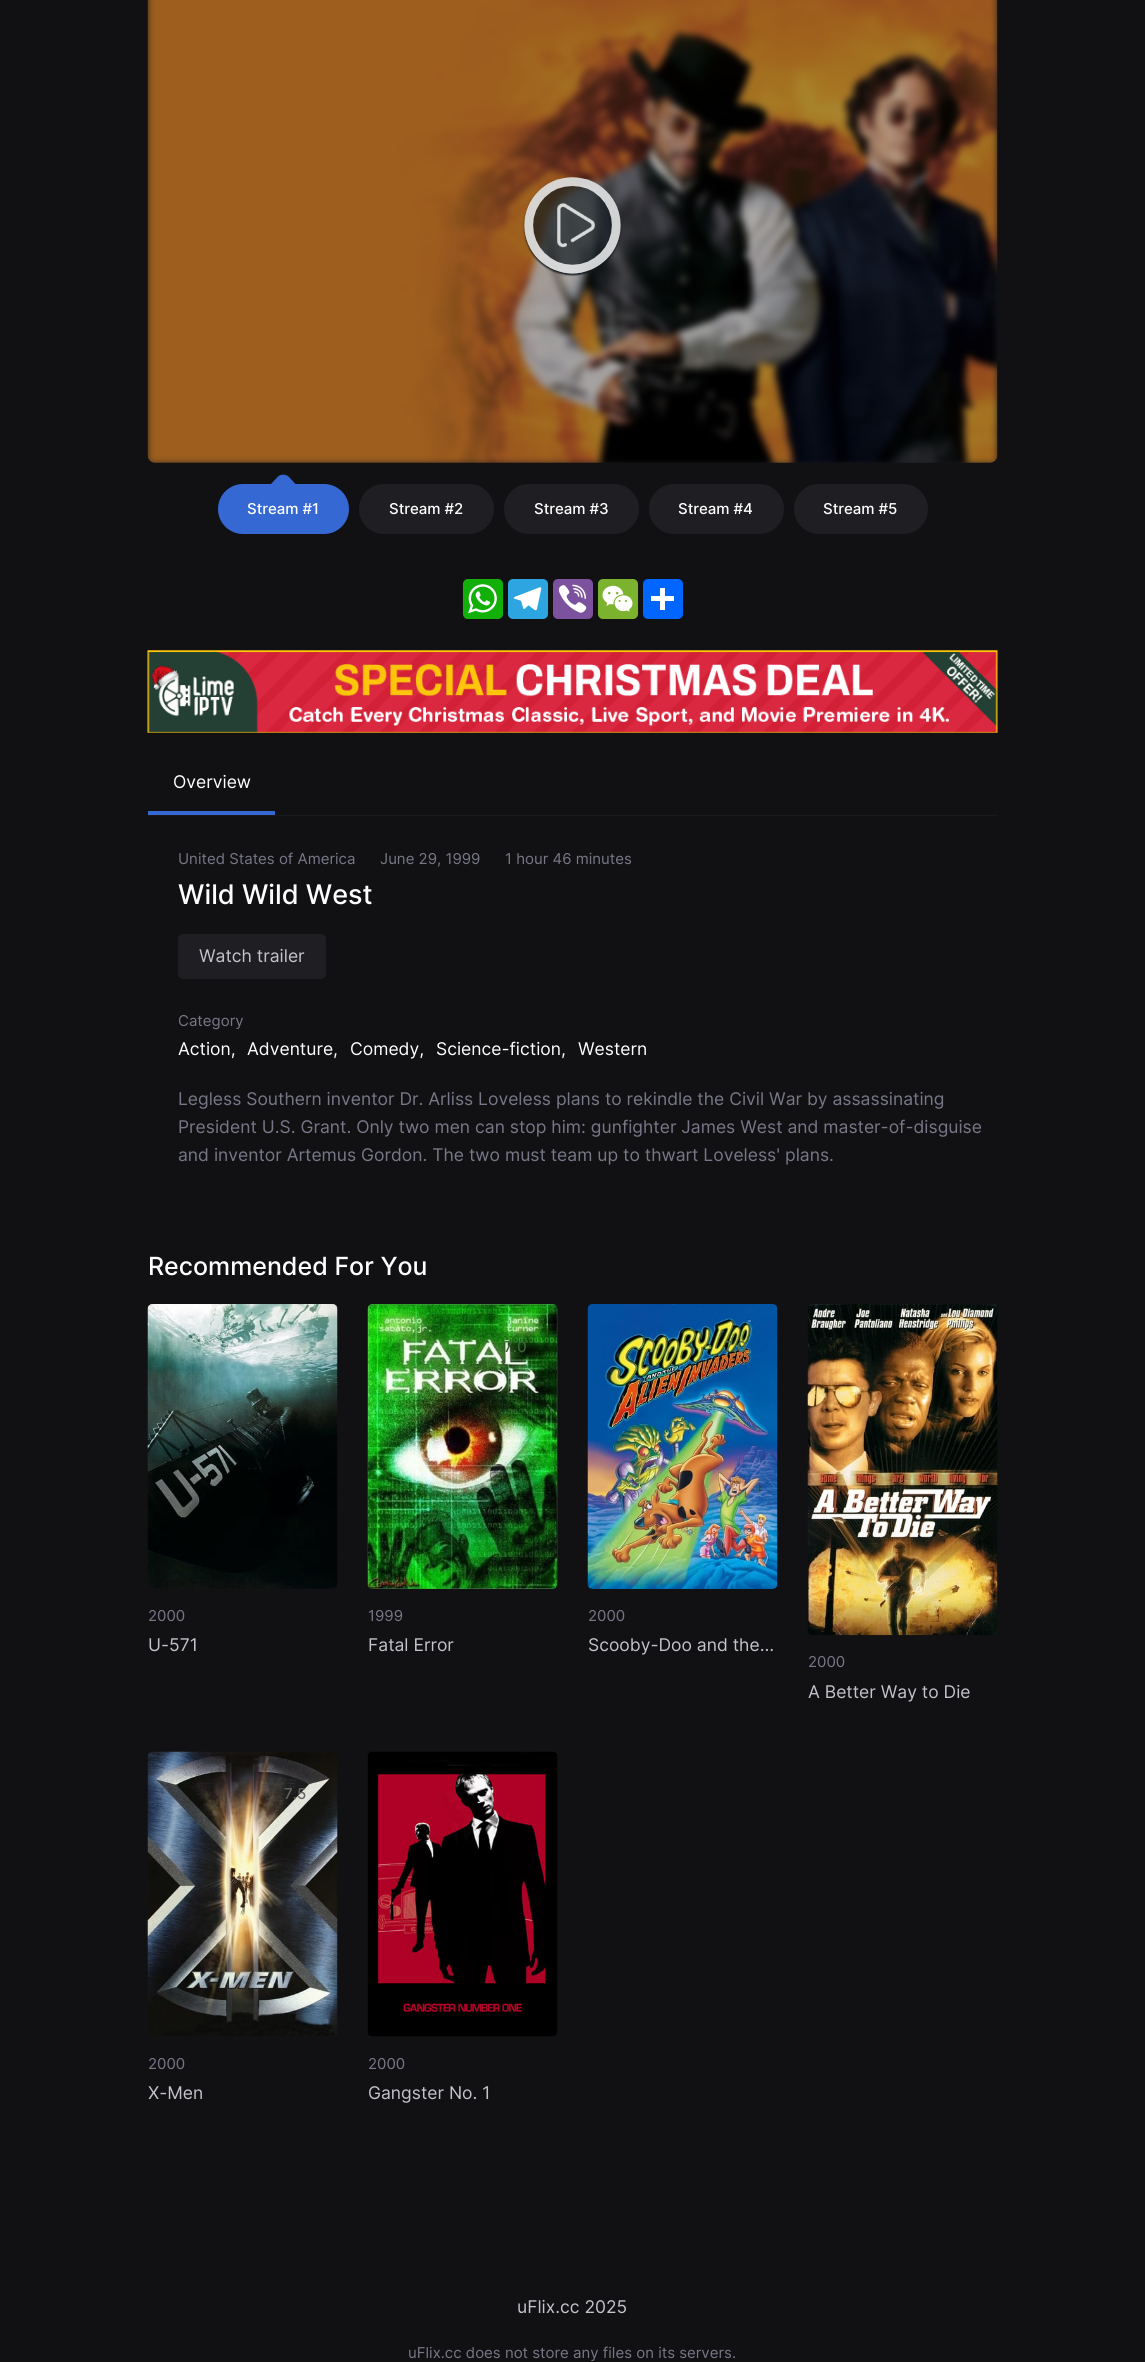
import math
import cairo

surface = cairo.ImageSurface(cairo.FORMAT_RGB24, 1145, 2362)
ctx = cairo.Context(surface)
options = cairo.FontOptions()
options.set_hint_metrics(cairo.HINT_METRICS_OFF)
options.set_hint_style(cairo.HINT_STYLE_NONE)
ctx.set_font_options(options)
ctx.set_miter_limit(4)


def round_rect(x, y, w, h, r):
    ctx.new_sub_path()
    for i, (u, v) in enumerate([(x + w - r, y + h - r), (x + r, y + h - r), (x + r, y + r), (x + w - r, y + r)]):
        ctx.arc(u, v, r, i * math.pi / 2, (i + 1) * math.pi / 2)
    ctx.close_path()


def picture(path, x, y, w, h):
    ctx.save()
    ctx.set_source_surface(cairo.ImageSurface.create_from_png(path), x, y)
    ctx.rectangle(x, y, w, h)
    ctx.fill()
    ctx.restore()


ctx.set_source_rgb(0.067, 0.067, 0.075)
ctx.paint()
picture("img1.png", 147, 0, 851, 463)
ctx.set_source_rgb(0.208, 0.408, 0.827)
ctx.new_path()
ctx.move_to(288.5, 476.5)
ctx.line_to(295.5, 484)
ctx.curve_to(298.5, 486.5, 298.5, 491.5, 295.5, 494.5)
ctx.line_to(288.5, 501.5)
ctx.curve_to(285.5, 504.5, 281, 504.5, 278, 501.5)
ctx.line_to(271, 494.5)
ctx.curve_to(268, 491.5, 268, 486.5, 271, 484)
ctx.line_to(278, 476.5)
ctx.curve_to(281, 474, 285.5, 474, 288.5, 476.5)
ctx.close_path()
ctx.fill()
round_rect(218, 484, 131, 50, 25)
ctx.fill()
ctx.select_font_face("Inter Medium")
ctx.set_font_size(15)
ctx.set_source_rgb(1, 1, 1)
ctx.move_to(247, 514)
ctx.show_text("Stream #1")
ctx.set_source_rgb(0.122, 0.122, 0.137)
round_rect(359, 484, 135, 50, 25)
ctx.fill()
ctx.set_source_rgb(1, 1, 1)
ctx.move_to(389, 514)
ctx.show_text("Stream #2")
ctx.set_source_rgb(0.122, 0.122, 0.137)
round_rect(504, 484, 135, 50, 25)
ctx.fill()
ctx.set_source_rgb(1, 1, 1)
ctx.move_to(534, 514)
ctx.show_text("Stream #3")
ctx.set_source_rgb(0.122, 0.122, 0.137)
round_rect(649, 484, 135, 50, 25)
ctx.fill()
ctx.set_source_rgb(1, 1, 1)
ctx.move_to(678, 514)
ctx.show_text("Stream #4")
ctx.set_source_rgb(0.122, 0.122, 0.137)
round_rect(794, 484, 134, 50, 25)
ctx.fill()
ctx.set_source_rgb(1, 1, 1)
ctx.move_to(823, 514)
ctx.show_text("Stream #5")
ctx.set_source_rgb(0.071, 0.686, 0.039)
round_rect(463, 579, 40, 40, 5)
ctx.fill()
picture("img2.png", 468, 584, 29, 30)
ctx.set_source_rgb(0.173, 0.647, 0.878)
round_rect(508, 579, 40, 40, 5)
ctx.fill()
picture("img3.png", 513, 587, 29, 24)
ctx.set_source_rgb(0.486, 0.322, 0.62)
round_rect(553, 579, 40, 40, 5)
ctx.fill()
picture("img4.png", 558, 584, 29, 29)
ctx.set_source_rgb(0.482, 0.702, 0.18)
round_rect(598, 579, 40, 40, 5)
ctx.fill()
picture("img5.png", 602, 585, 31, 27)
ctx.set_source_rgb(0.004, 0.4, 1)
round_rect(643, 579, 40, 40, 5)
ctx.fill()
ctx.set_source_rgb(1, 1, 1)
ctx.rectangle(660, 588, 5, 22)
ctx.fill()
ctx.rectangle(651, 596, 23, 5)
ctx.fill()
picture("img6.png", 147, 650, 851, 83)
ctx.set_source_rgb(0.102, 0.102, 0.118)
ctx.rectangle(148, 815, 850, 1)
ctx.fill()
ctx.select_font_face("Inter")
ctx.set_font_size(17.5)
ctx.set_source_rgb(1, 1, 1)
ctx.move_to(173, 788)
ctx.show_text("Overview")
ctx.set_source_rgb(0.208, 0.408, 0.827)
ctx.rectangle(148, 811, 127, 4)
ctx.fill()
ctx.set_font_size(15)
ctx.set_source_rgb(0.467, 0.467, 0.533)
ctx.move_to(178, 864)
ctx.show_text("United States of America")
ctx.move_to(380, 864)
ctx.show_text("June 29, 1999")
ctx.move_to(505, 864)
ctx.show_text("1 hour 46 minutes")
ctx.select_font_face("Inter Medium")
ctx.set_font_size(27)
ctx.set_source_rgb(1, 1, 1)
ctx.move_to(178, 904)
ctx.show_text("Wild Wild West")
ctx.set_source_rgb(0.122, 0.122, 0.137)
round_rect(178, 934, 148, 45, 5)
ctx.fill()
ctx.select_font_face("Inter")
ctx.set_font_size(17.5)
ctx.set_source_rgb(0.765, 0.765, 0.796)
ctx.move_to(199, 962)
ctx.show_text("Watch trailer")
ctx.set_font_size(15)
ctx.set_source_rgb(0.467, 0.467, 0.533)
ctx.move_to(178, 1026)
ctx.show_text("Category")
ctx.set_font_size(17.5)
ctx.set_source_rgb(1, 1, 1)
ctx.move_to(178, 1055)
ctx.show_text("Action,")
ctx.move_to(247, 1055)
ctx.show_text("Adventure,")
ctx.move_to(350, 1055)
ctx.show_text("Comedy,")
ctx.move_to(436, 1055)
ctx.show_text("Science-fiction,")
ctx.move_to(578, 1055)
ctx.show_text("Western")
ctx.set_source_rgb(0.467, 0.467, 0.533)
ctx.move_to(178, 1105)
ctx.show_text("Legless Southern inventor Dr. Arliss Loveless plans to rekindle the Civil War by assassinating")
ctx.move_to(178, 1133)
ctx.show_text("President U.S. Grant. Only two men can stop him: gunfighter James West and master-of-disguise")
ctx.move_to(178, 1161)
ctx.show_text("and inventor Artemus Gordon. The two must team up to thwart Loveless' plans.")
ctx.select_font_face("Inter Medium")
ctx.set_font_size(25)
ctx.set_source_rgb(1, 1, 1)
ctx.move_to(148, 1275)
ctx.show_text("Recommended For You")
picture("img7.png", 147, 1304, 191, 285)
ctx.select_font_face("Inter")
ctx.set_font_size(15)
ctx.set_source_rgb(0.467, 0.467, 0.533)
ctx.move_to(148, 1621)
ctx.show_text("2000")
ctx.set_font_size(17.5)
ctx.set_source_rgb(0.765, 0.765, 0.796)
ctx.move_to(148, 1651)
ctx.show_text("U-571")
picture("img8.png", 367, 1304, 191, 285)
ctx.select_font_face("Inter Medium")
ctx.set_font_size(15)
ctx.set_source_rgb(0.235, 0.388, 0.22)
ctx.move_to(504, 1352)
ctx.show_text("7.0")
ctx.select_font_face("Inter")
ctx.set_source_rgb(0.467, 0.467, 0.533)
ctx.move_to(368, 1621)
ctx.show_text("1999")
ctx.set_font_size(17.5)
ctx.set_source_rgb(0.765, 0.765, 0.796)
ctx.move_to(368, 1651)
ctx.show_text("Fatal Error")
picture("img9.png", 587, 1304, 191, 285)
ctx.select_font_face("Inter Medium")
ctx.set_font_size(15)
ctx.set_source_rgb(0.329, 0.435, 0.294)
ctx.move_to(724, 1352)
ctx.show_text("7.0")
ctx.select_font_face("Inter")
ctx.set_source_rgb(0.467, 0.467, 0.533)
ctx.move_to(588, 1621)
ctx.show_text("2000")
ctx.set_font_size(17.5)
ctx.set_source_rgb(0.765, 0.765, 0.796)
ctx.move_to(588, 1651)
ctx.show_text("Scooby-Doo and the…")
picture("img10.png", 807, 1304, 191, 332)
ctx.select_font_face("Inter Medium")
ctx.set_font_size(15)
ctx.set_source_rgb(0.424, 0.271, 0.106)
ctx.move_to(943, 1352)
ctx.show_text("6.4")
ctx.select_font_face("Inter")
ctx.set_source_rgb(0.467, 0.467, 0.533)
ctx.move_to(808, 1667)
ctx.show_text("2000")
ctx.set_font_size(17.5)
ctx.set_source_rgb(0.765, 0.765, 0.796)
ctx.move_to(808, 1698)
ctx.show_text("A Better Way to Die")
picture("img11.png", 147, 1751, 191, 285)
ctx.select_font_face("Inter Medium")
ctx.set_font_size(15)
ctx.set_source_rgb(0.392, 0.392, 0.376)
ctx.move_to(284, 1799)
ctx.show_text("7.5")
ctx.select_font_face("Inter")
ctx.set_source_rgb(0.467, 0.467, 0.533)
ctx.move_to(148, 2069)
ctx.show_text("2000")
ctx.set_font_size(17.5)
ctx.set_source_rgb(0.765, 0.765, 0.796)
ctx.move_to(148, 2099)
ctx.show_text("X-Men")
picture("img12.png", 367, 1751, 191, 286)
ctx.set_font_size(15)
ctx.set_source_rgb(0.467, 0.467, 0.533)
ctx.move_to(368, 2069)
ctx.show_text("2000")
ctx.set_font_size(17.5)
ctx.set_source_rgb(0.765, 0.765, 0.796)
ctx.move_to(368, 2099)
ctx.show_text("Gangster No. 1")
ctx.move_to(517, 2313)
ctx.show_text("uFlix.cc 2025")
ctx.set_font_size(15)
ctx.set_source_rgb(0.467, 0.467, 0.533)
ctx.move_to(408, 2358)
ctx.show_text("uFlix.cc does not store any files on its servers.")
surface.write_to_png("page.png")
